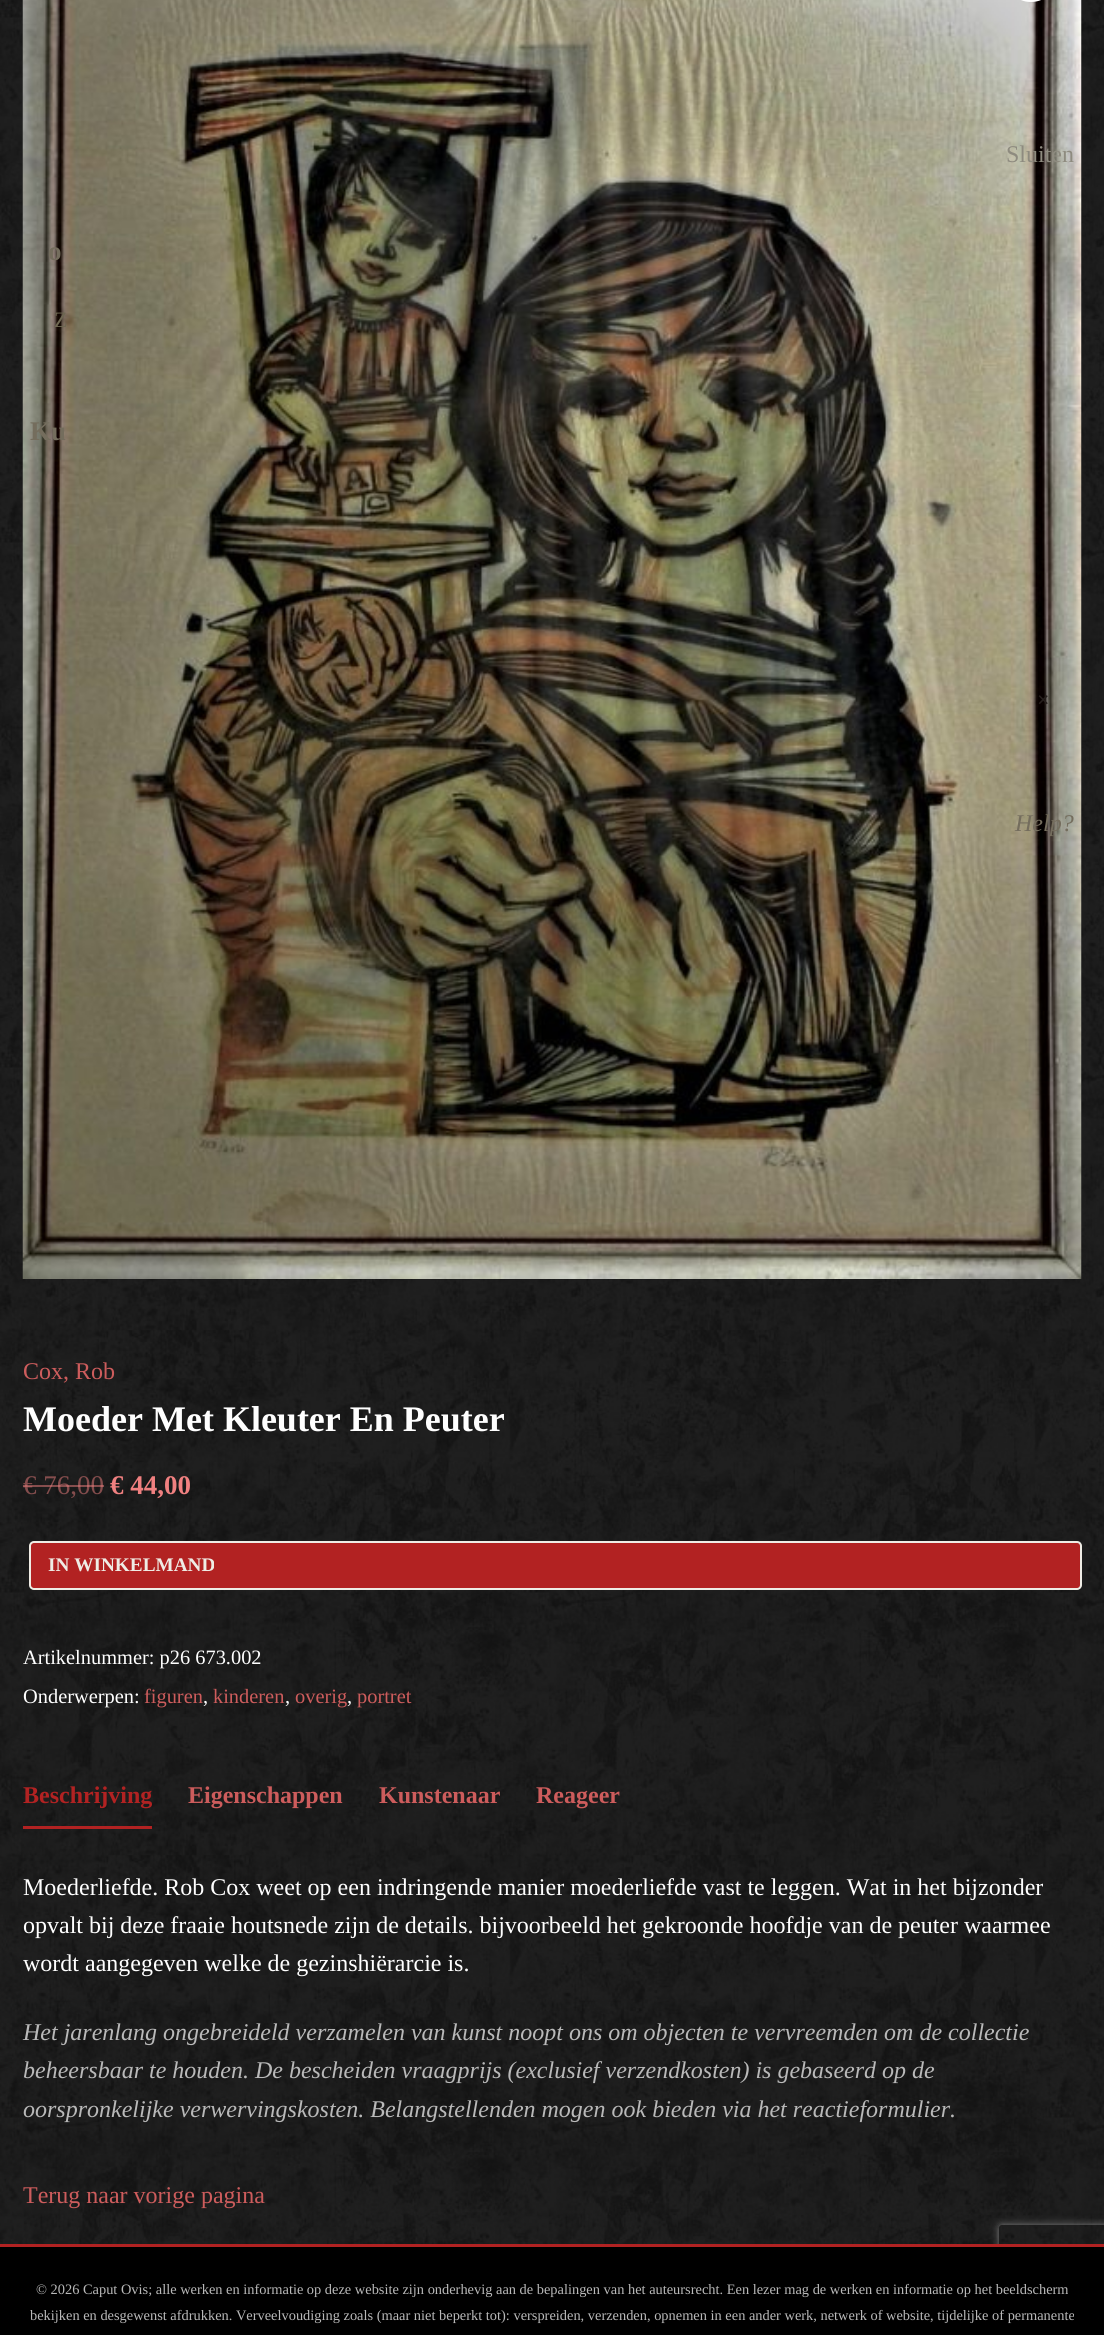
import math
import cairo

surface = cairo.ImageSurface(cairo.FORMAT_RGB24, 1104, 2335)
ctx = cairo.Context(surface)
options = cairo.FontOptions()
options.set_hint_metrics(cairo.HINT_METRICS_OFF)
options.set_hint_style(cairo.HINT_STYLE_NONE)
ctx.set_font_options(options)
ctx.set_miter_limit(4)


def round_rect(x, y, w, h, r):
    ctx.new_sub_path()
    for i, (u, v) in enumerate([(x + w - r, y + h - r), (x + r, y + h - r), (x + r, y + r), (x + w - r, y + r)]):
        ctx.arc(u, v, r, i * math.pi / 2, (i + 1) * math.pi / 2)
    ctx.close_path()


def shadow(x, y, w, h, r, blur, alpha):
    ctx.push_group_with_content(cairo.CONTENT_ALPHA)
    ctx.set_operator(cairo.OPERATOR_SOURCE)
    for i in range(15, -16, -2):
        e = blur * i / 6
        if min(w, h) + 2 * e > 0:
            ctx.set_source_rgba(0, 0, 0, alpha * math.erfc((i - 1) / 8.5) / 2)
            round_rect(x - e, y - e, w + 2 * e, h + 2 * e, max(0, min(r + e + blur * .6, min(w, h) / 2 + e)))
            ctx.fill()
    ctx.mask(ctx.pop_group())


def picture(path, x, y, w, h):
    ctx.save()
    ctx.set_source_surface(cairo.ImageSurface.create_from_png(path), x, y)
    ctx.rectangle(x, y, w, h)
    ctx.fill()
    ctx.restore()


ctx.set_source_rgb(1, 1, 1)
ctx.paint()
picture("img1.png", 0, 0, 1104, 2244)
picture("img2.png", 22, 0, 1060, 1279)
ctx.select_font_face("Liberation Serif")
ctx.set_font_size(24)
ctx.set_source_rgb(0.557, 0.545, 0.498)
ctx.move_to(1006, 162)
ctx.show_text("Sluiten")
ctx.select_font_face("Liberation Serif", cairo.FONT_SLANT_NORMAL, cairo.FONT_WEIGHT_BOLD)
ctx.set_font_size(27)
ctx.set_source_rgb(0.455, 0.427, 0.365)
ctx.move_to(48, 260)
ctx.show_text("o")
ctx.select_font_face("Liberation Serif")
ctx.set_font_size(22)
ctx.set_source_rgb(0.431, 0.404, 0.322)
ctx.move_to(54, 327)
ctx.show_text("Z")
ctx.select_font_face("Liberation Serif", cairo.FONT_SLANT_NORMAL, cairo.FONT_WEIGHT_BOLD)
ctx.set_font_size(27)
ctx.set_source_rgb(0.455, 0.427, 0.365)
ctx.move_to(30, 440)
ctx.show_text("Ku")
ctx.set_font_size(22)
ctx.set_source_rgb(0.149, 0.122, 0.114)
ctx.move_to(1037, 707)
ctx.show_text("×")
ctx.select_font_face("Liberation Serif", cairo.FONT_SLANT_ITALIC)
ctx.set_font_size(24)
ctx.set_source_rgb(0.455, 0.427, 0.365)
ctx.move_to(1015, 831)
ctx.show_text("Help?")
ctx.set_source_rgb(1, 1, 1)
round_rect(1004, -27, 54, 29, 27)
ctx.fill()
ctx.select_font_face("Liberation Serif")
ctx.set_source_rgb(0.804, 0.361, 0.361)
ctx.move_to(23, 1379)
ctx.show_text("Cox, Rob")
ctx.select_font_face("Liberation Serif", cairo.FONT_SLANT_NORMAL, cairo.FONT_WEIGHT_BOLD)
ctx.set_font_size(36)
ctx.set_source_rgb(1, 1, 1)
ctx.move_to(23, 1431)
ctx.show_text("Moeder Met Kleuter En Peuter")
ctx.select_font_face("Liberation Serif")
ctx.set_font_size(27)
ctx.set_source_rgb(0.522, 0.302, 0.302)
ctx.move_to(23, 1494)
ctx.show_text("€ 76,00")
ctx.set_source_rgba(0.941, 0.502, 0.502, 0.5)
ctx.rectangle(23, 1485, 13, 2)
ctx.fill()
ctx.rectangle(36, 1485, 68, 2)
ctx.fill()
ctx.select_font_face("Liberation Serif", cairo.FONT_SLANT_NORMAL, cairo.FONT_WEIGHT_BOLD)
ctx.set_source_rgb(0.941, 0.502, 0.502)
ctx.move_to(110, 1494)
ctx.show_text("€ 44,00")
ctx.set_source_rgb(0.698, 0.133, 0.133)
round_rect(30, 1542, 1051, 47, 4)
ctx.fill_preserve()
ctx.set_source_rgb(0.937, 0.925, 0.898)
ctx.stroke()
ctx.set_font_size(19.25)
ctx.move_to(48, 1571)
ctx.show_text("IN WINKELMAND")
ctx.select_font_face("Liberation Serif")
ctx.set_font_size(20.4)
ctx.set_source_rgb(1, 1, 1)
ctx.move_to(23, 1664)
ctx.show_text("Artikelnummer: p26 673.002")
ctx.move_to(23, 1703)
ctx.show_text("Onderwerpen:")
ctx.set_source_rgb(0.804, 0.361, 0.361)
ctx.move_to(144, 1703)
ctx.show_text("figuren")
ctx.set_source_rgb(1, 1, 1)
ctx.move_to(203, 1703)
ctx.show_text(",")
ctx.set_source_rgb(0.804, 0.361, 0.361)
ctx.move_to(213, 1703)
ctx.show_text("kinderen")
ctx.set_source_rgb(1, 1, 1)
ctx.move_to(285, 1703)
ctx.show_text(",")
ctx.set_source_rgb(0.804, 0.361, 0.361)
ctx.move_to(295, 1703)
ctx.show_text("overig")
ctx.set_source_rgb(1, 1, 1)
ctx.move_to(347, 1703)
ctx.show_text(",")
ctx.set_source_rgb(0.804, 0.361, 0.361)
ctx.move_to(357, 1703)
ctx.show_text("portret")
ctx.set_source_rgb(0.698, 0.133, 0.133)
ctx.rectangle(23, 1826, 129, 3)
ctx.fill()
ctx.select_font_face("Liberation Serif", cairo.FONT_SLANT_NORMAL, cairo.FONT_WEIGHT_BOLD)
ctx.set_font_size(24)
ctx.move_to(23, 1803)
ctx.show_text("Beschrijving")
ctx.set_source_rgb(0.804, 0.361, 0.361)
ctx.move_to(188, 1803)
ctx.show_text("Eigenschappen")
ctx.move_to(379, 1803)
ctx.show_text("Kunstenaar")
ctx.move_to(536, 1803)
ctx.show_text("Reageer")
ctx.select_font_face("Liberation Serif")
ctx.set_source_rgb(1, 1, 1)
ctx.move_to(23, 1895)
ctx.show_text("Moederliefde. Rob Cox weet op een indringende manier moederliefde vast te leggen. Wat in het bijzonder")
ctx.move_to(23, 1933)
ctx.show_text("opvalt bij deze fraaie houtsnede zijn de details. bijvoorbeeld het gekroonde hoofdje van de peuter waarmee")
ctx.move_to(23, 1971)
ctx.show_text("wordt aangegeven welke de gezinshiërarcie is.")
ctx.select_font_face("Liberation Serif", cairo.FONT_SLANT_ITALIC)
ctx.set_source_rgb(0.725, 0.725, 0.725)
ctx.move_to(23, 2040)
ctx.show_text("Het jarenlang ongebreideld verzamelen van kunst noopt ons om objecten te vervreemden om de collectie")
ctx.move_to(23, 2078)
ctx.show_text("beheersbaar te houden. De bescheiden vraagprijs (exclusief verzendkosten) is gebaseerd op de")
ctx.move_to(23, 2117)
ctx.show_text("oorspronkelijke verwervingskosten. Belangstellenden mogen ook bieden via het reactieformulier.")
ctx.select_font_face("Liberation Serif")
ctx.set_source_rgb(0.804, 0.361, 0.361)
ctx.move_to(23, 2203)
ctx.show_text("Terug naar vorige pagina")
ctx.save()
ctx.set_fill_rule(cairo.FILL_RULE_EVEN_ODD)
ctx.new_path()
ctx.move_to(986, 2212)
ctx.line_to(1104, 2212)
ctx.line_to(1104, 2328)
ctx.line_to(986, 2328)
ctx.close_path()
ctx.move_to(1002, 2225)
ctx.line_to(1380, 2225)
ctx.curve_to(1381.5, 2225, 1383, 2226.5, 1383, 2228)
ctx.line_to(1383, 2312)
ctx.curve_to(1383, 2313.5, 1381.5, 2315, 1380, 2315)
ctx.line_to(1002, 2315)
ctx.curve_to(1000.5, 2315, 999, 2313.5, 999, 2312)
ctx.line_to(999, 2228)
ctx.curve_to(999, 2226.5, 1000.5, 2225, 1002, 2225)
ctx.close_path()
ctx.clip()
ctx.set_source_rgb(0.502, 0.502, 0.502)
shadow(999, 2225, 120, 90, 3, 4, 1)
ctx.restore()
ctx.set_source_rgb(0.698, 0.133, 0.133)
ctx.rectangle(0, 2244, 1104, 3)
ctx.fill()
ctx.set_source_rgb(0, 0, 0)
ctx.rectangle(0, 2247, 1104, 88)
ctx.fill()
ctx.set_font_size(14.4)
ctx.set_source_rgb(0.725, 0.725, 0.725)
ctx.move_to(36, 2294)
ctx.show_text("© 2026 Caput Ovis; alle werken en informatie op deze website zijn onderhevig aan de bepalingen van het auteursrecht. Een lezer mag de werken en informatie op het beeldscherm")
ctx.move_to(30, 2320)
ctx.show_text("bekijken en desgewenst afdrukken. Verveelvoudiging zoals (maar niet beperkt tot): verspreiden, verzenden, opnemen in een ander werk, netwerk of website, tijdelijke of permanente")
surface.write_to_png("page.png")
